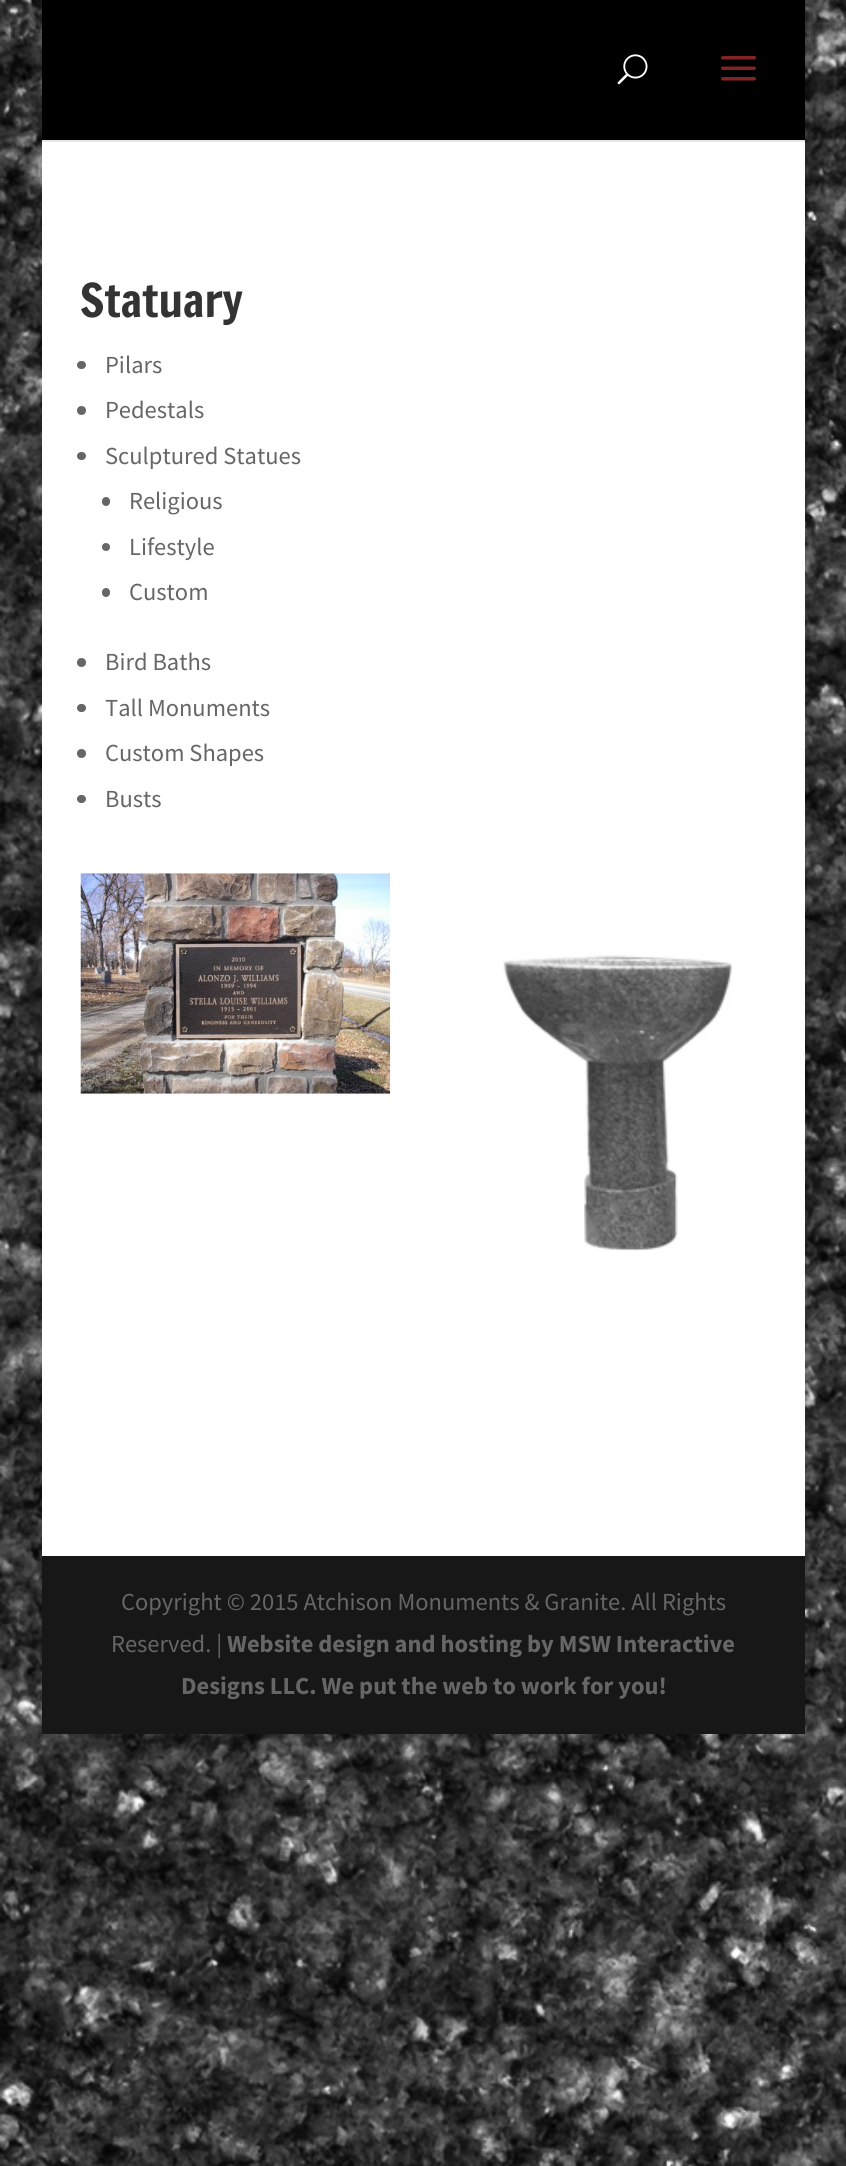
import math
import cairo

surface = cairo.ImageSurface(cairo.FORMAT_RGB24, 846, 2166)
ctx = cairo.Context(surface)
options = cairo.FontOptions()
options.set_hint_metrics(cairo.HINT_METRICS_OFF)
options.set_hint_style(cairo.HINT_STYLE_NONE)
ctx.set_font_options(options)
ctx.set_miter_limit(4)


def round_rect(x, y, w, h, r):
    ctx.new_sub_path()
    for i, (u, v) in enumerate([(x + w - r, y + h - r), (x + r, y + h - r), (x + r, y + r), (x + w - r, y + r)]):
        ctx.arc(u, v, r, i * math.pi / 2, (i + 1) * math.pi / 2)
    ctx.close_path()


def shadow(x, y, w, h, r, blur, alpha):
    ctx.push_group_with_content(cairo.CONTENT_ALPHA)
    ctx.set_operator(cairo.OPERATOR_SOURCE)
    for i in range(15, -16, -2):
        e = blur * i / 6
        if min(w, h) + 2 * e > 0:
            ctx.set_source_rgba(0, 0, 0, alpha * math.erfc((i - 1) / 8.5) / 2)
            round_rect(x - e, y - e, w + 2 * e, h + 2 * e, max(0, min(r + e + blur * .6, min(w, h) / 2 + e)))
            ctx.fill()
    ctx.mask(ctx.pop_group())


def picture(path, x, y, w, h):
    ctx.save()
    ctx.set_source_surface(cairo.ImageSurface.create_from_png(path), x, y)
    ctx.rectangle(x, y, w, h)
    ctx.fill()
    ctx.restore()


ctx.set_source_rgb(1, 1, 1)
ctx.paint()
picture("img1.png", 0, 0, 846, 2166)
ctx.set_source_rgb(0, 0, 0)
shadow(42, 0, 763, 1734, 0, 9, 0.2)
ctx.set_source_rgb(0.902, 0.902, 0.902)
ctx.rectangle(42, 140, 763, 2)
ctx.fill()
ctx.set_source_rgb(0, 0, 0)
ctx.rectangle(42, 0, 763, 140)
ctx.fill()
picture("img2.png", 617, 54, 31, 31)
picture("img3.png", 721, 56, 35, 25)
ctx.set_source_rgb(1, 1, 1)
ctx.rectangle(42, 142, 763, 1414)
ctx.fill()
ctx.select_font_face("Francois One")
ctx.set_font_size(45.5)
ctx.set_source_rgb(0.2, 0.2, 0.2)
ctx.move_to(80, 317)
ctx.show_text("Statuary")
ctx.set_source_rgb(0.4, 0.4, 0.4)
round_rect(77, 361, 9, 8, 4)
ctx.fill()
ctx.select_font_face("Source Sans Pro")
ctx.set_font_size(24.5)
ctx.move_to(105, 373)
ctx.show_text("Pilars")
ctx.new_path()
ctx.arc(81.5, 410.5, 4.5, 0, 2 * math.pi)
ctx.fill()
ctx.move_to(105, 418)
ctx.show_text("Pedestals")
round_rect(77, 452, 9, 8, 4)
ctx.fill()
ctx.move_to(105, 464)
ctx.show_text("Sculptured Statues")
round_rect(102, 497, 8, 9, 4)
ctx.fill()
ctx.move_to(129, 509)
ctx.show_text("Religious")
ctx.new_path()
ctx.arc(106, 547, 4, 0, 2 * math.pi)
ctx.fill()
ctx.move_to(129, 555)
ctx.show_text("Lifestyle")
round_rect(102, 588, 8, 9, 4)
ctx.fill()
ctx.move_to(129, 600)
ctx.show_text("Custom")
ctx.new_path()
ctx.arc(81.5, 662.5, 4.5, 0, 2 * math.pi)
ctx.fill()
ctx.move_to(105, 670)
ctx.show_text("Bird Baths")
round_rect(77, 704, 9, 8, 4)
ctx.fill()
ctx.move_to(105, 716)
ctx.show_text("Tall Monuments")
ctx.new_path()
ctx.arc(81.5, 753.5, 4.5, 0, 2 * math.pi)
ctx.fill()
ctx.move_to(105, 761)
ctx.show_text("Custom Shapes")
round_rect(77, 795, 9, 8, 4)
ctx.fill()
ctx.move_to(105, 807)
ctx.show_text("Busts")
picture("img4.png", 80, 873, 311, 221)
picture("img5.png", 503, 955, 229, 296)
ctx.set_source_rgb(0.09, 0.09, 0.09)
ctx.rectangle(42, 1556, 763, 178)
ctx.fill()
ctx.set_source_rgb(0.4, 0.4, 0.4)
ctx.move_to(121, 1610)
ctx.show_text("Copyright © 2015 Atchison Monuments & Granite. All Rights")
ctx.move_to(111, 1652)
ctx.show_text("Reserved. |")
ctx.select_font_face("Source Sans Pro", cairo.FONT_SLANT_NORMAL, cairo.FONT_WEIGHT_BOLD)
ctx.move_to(227, 1652)
ctx.show_text("Website design and hosting by MSW Interactive")
ctx.move_to(181, 1694)
ctx.show_text("Designs LLC. We put the web to work for you!")
surface.write_to_png("page.png")
